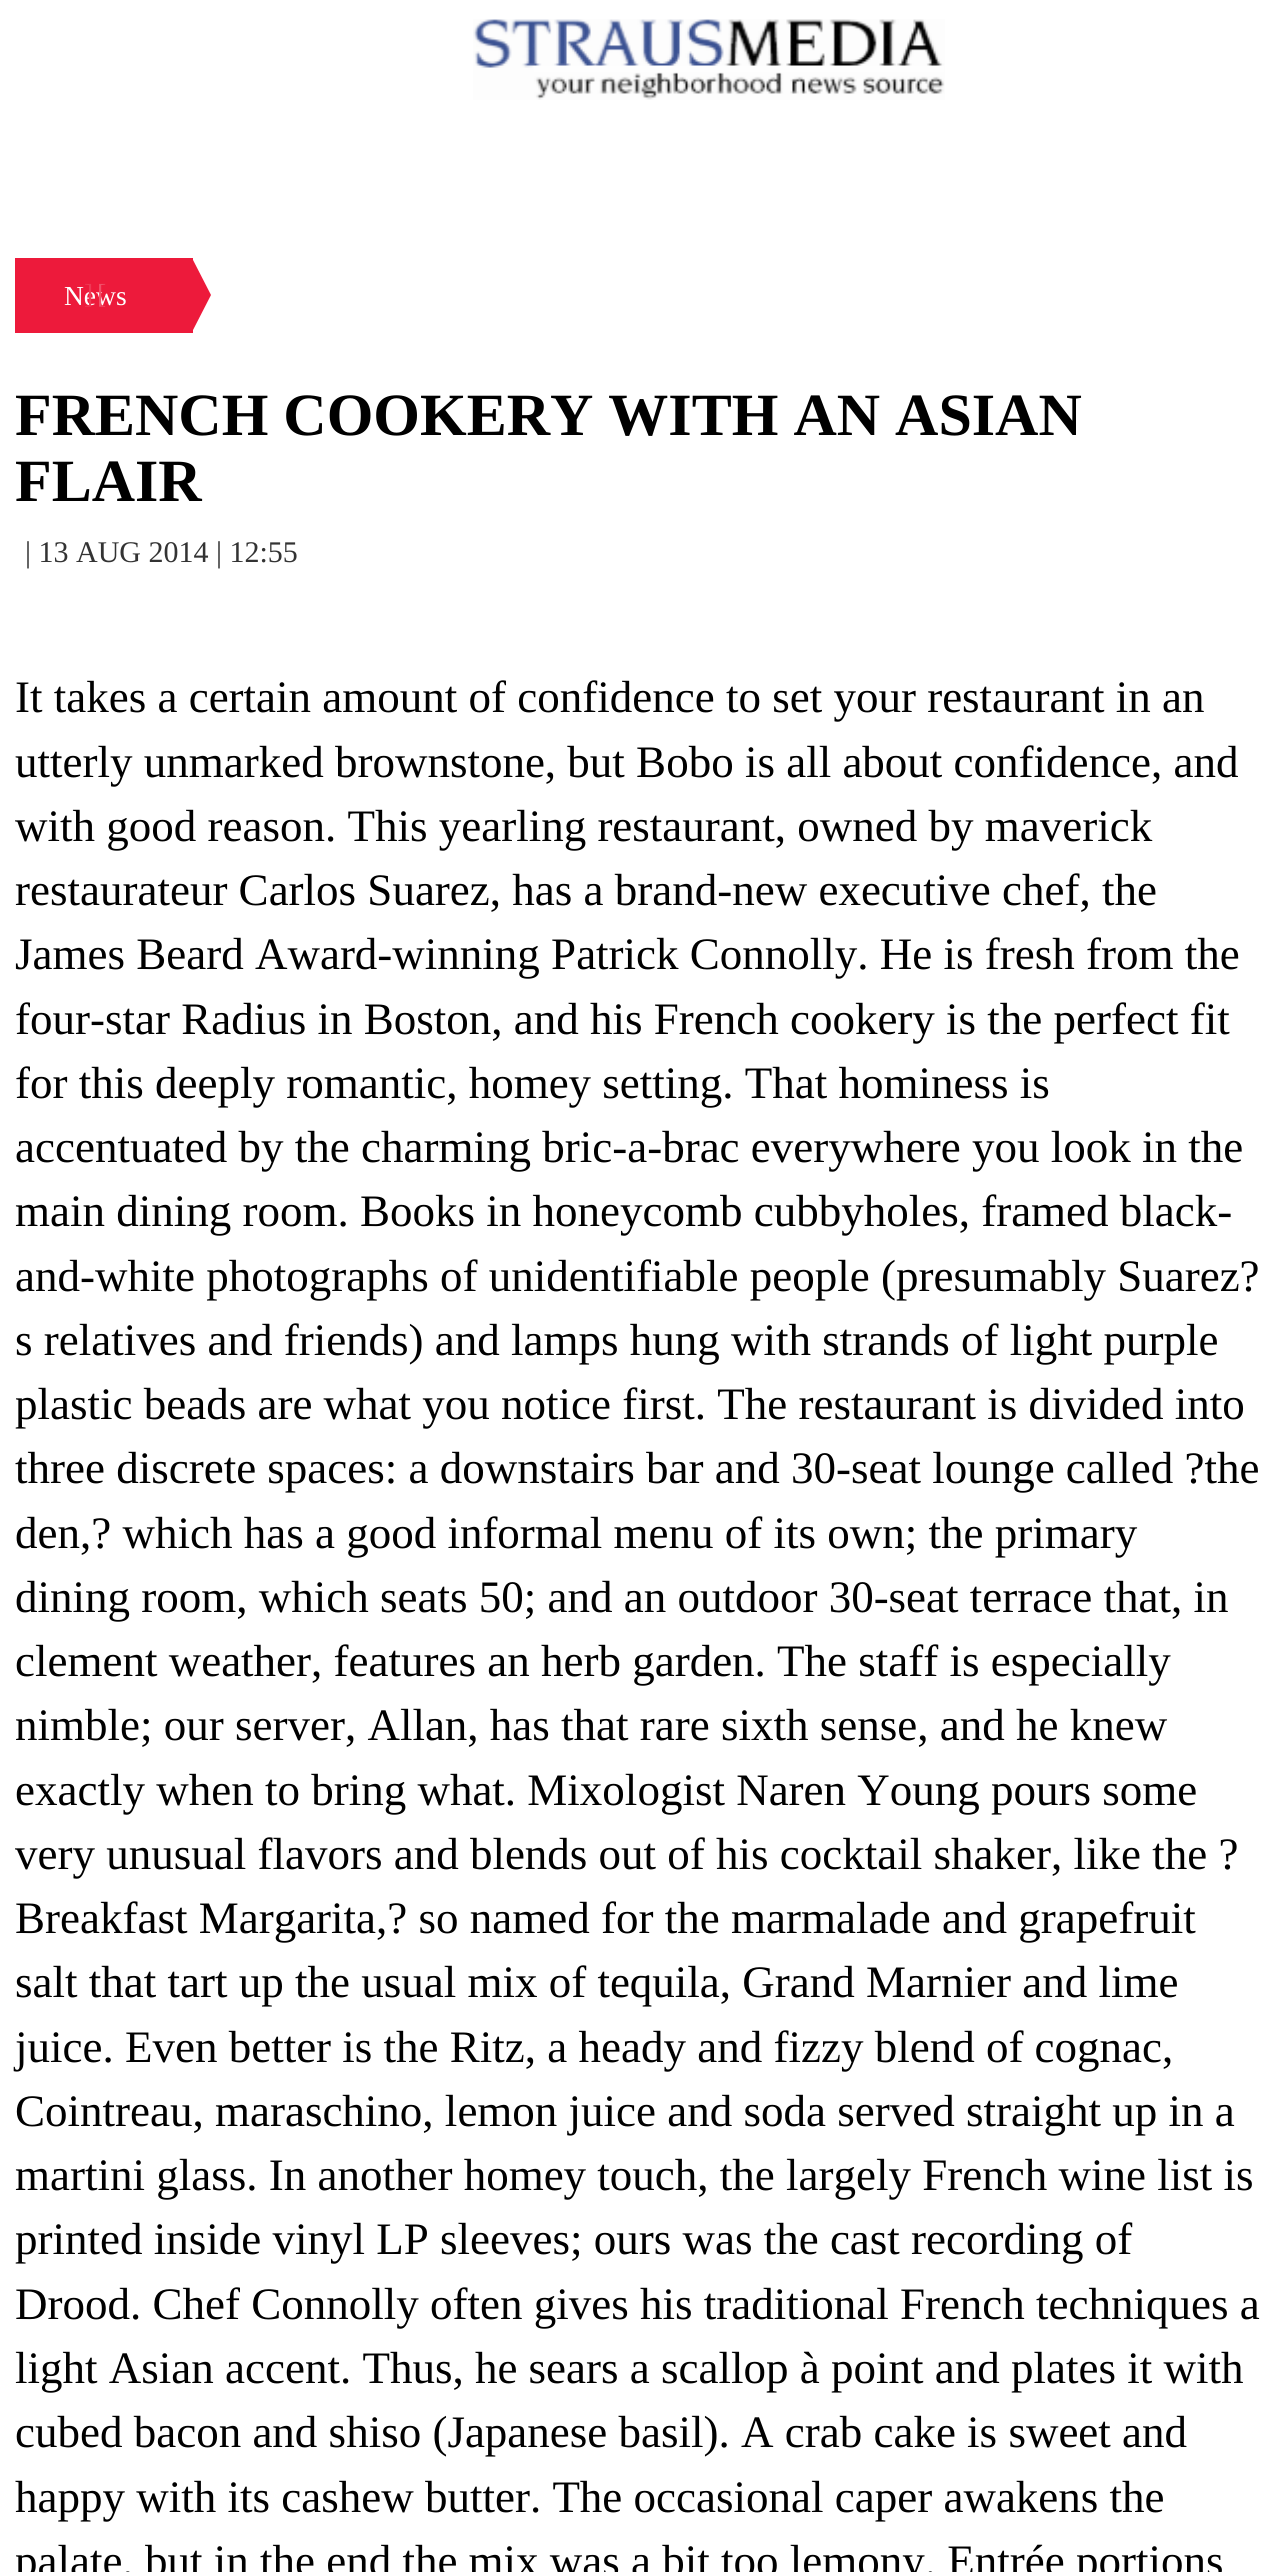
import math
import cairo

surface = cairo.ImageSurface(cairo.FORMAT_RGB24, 1273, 2572)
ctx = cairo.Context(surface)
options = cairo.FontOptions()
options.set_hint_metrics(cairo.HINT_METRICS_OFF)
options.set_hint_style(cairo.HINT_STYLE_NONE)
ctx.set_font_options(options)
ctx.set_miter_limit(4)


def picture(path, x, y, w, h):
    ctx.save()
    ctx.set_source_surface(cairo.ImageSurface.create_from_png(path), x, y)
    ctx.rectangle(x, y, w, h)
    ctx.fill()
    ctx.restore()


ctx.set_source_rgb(1, 1, 1)
ctx.paint()
picture("img1.png", 473, 19, 472, 81)
ctx.set_source_rgb(0.929, 0.102, 0.231)
ctx.rectangle(15, 258, 178, 75)
ctx.fill()
ctx.select_font_face("Liberation Serif")
ctx.set_font_size(27.5)
ctx.set_source_rgb(1, 1, 1)
ctx.move_to(64, 305)
ctx.show_text("News")
ctx.set_source_rgb(0.937, 0.224, 0.333)
ctx.move_to(84, 303)
ctx.show_text("]")
ctx.set_source_rgb(0.945, 0.314, 0.412)
ctx.move_to(97, 303)
ctx.show_text("[")
ctx.set_source_rgb(0.929, 0.102, 0.231)
ctx.new_path()
ctx.move_to(192, 332)
ctx.line_to(192, 258)
ctx.line_to(211, 295)
ctx.close_path()
ctx.fill()
ctx.select_font_face("Liberation Serif", cairo.FONT_SLANT_NORMAL, cairo.FONT_WEIGHT_BOLD)
ctx.set_font_size(60)
ctx.set_source_rgb(0, 0, 0)
ctx.move_to(15, 435)
ctx.show_text("FRENCH COOKERY WITH AN ASIAN")
ctx.move_to(15, 501)
ctx.show_text("FLAIR")
ctx.select_font_face("Liberation Serif")
ctx.set_font_size(30)
ctx.set_source_rgb(0.2, 0.2, 0.2)
ctx.move_to(25, 562)
ctx.show_text("| 13 AUG 2014 | 12:55")
ctx.set_font_size(45)
ctx.set_source_rgb(0, 0, 0)
ctx.move_to(15, 712)
ctx.show_text("It takes a certain amount of confidence to set your restaurant in an")
ctx.move_to(15, 777)
ctx.show_text("utterly unmarked brownstone, but Bobo is all about confidence, and")
ctx.move_to(15, 841)
ctx.show_text("with good reason. This yearling restaurant, owned by maverick")
ctx.move_to(15, 905)
ctx.show_text("restaurateur Carlos Suarez, has a brand-new executive chef, the")
ctx.move_to(15, 969)
ctx.show_text("James Beard Award-winning Patrick Connolly. He is fresh from the")
ctx.move_to(15, 1034)
ctx.show_text("four-star Radius in Boston, and his French cookery is the perfect fit")
ctx.move_to(15, 1098)
ctx.show_text("for this deeply romantic, homey setting. That hominess is")
ctx.move_to(15, 1162)
ctx.show_text("accentuated by the charming bric-a-brac everywhere you look in the")
ctx.move_to(15, 1226)
ctx.show_text("main dining room. Books in honeycomb cubbyholes, framed black-")
ctx.move_to(15, 1291)
ctx.show_text("and-white photographs of unidentifiable people (presumably Suarez?")
ctx.move_to(15, 1355)
ctx.show_text("s relatives and friends) and lamps hung with strands of light purple")
ctx.move_to(15, 1419)
ctx.show_text("plastic beads are what you notice first. The restaurant is divided into")
ctx.move_to(15, 1483)
ctx.show_text("three discrete spaces: a downstairs bar and 30-seat lounge called ?the")
ctx.move_to(15, 1548)
ctx.show_text("den,? which has a good informal menu of its own; the primary")
ctx.move_to(15, 1612)
ctx.show_text("dining room, which seats 50; and an outdoor 30-seat terrace that, in")
ctx.move_to(15, 1676)
ctx.show_text("clement weather, features an herb garden. The staff is especially")
ctx.move_to(15, 1740)
ctx.show_text("nimble; our server, Allan, has that rare sixth sense, and he knew")
ctx.move_to(15, 1805)
ctx.show_text("exactly when to bring what. Mixologist Naren Young pours some")
ctx.move_to(15, 1869)
ctx.show_text("very unusual flavors and blends out of his cocktail shaker, like the ?")
ctx.move_to(15, 1933)
ctx.show_text("Breakfast Margarita,? so named for the marmalade and grapefruit")
ctx.move_to(15, 1997)
ctx.show_text("salt that tart up the usual mix of tequila, Grand Marnier and lime")
ctx.move_to(15, 2062)
ctx.show_text("juice. Even better is the Ritz, a heady and fizzy blend of cognac,")
ctx.move_to(15, 2126)
ctx.show_text("Cointreau, maraschino, lemon juice and soda served straight up in a")
ctx.move_to(15, 2190)
ctx.show_text("martini glass. In another homey touch, the largely French wine list is")
ctx.move_to(15, 2254)
ctx.show_text("printed inside vinyl LP sleeves; ours was the cast recording of")
ctx.move_to(15, 2319)
ctx.show_text("Drood. Chef Connolly often gives his traditional French techniques a")
ctx.move_to(15, 2383)
ctx.show_text("light Asian accent. Thus, he sears a scallop à point and plates it with")
ctx.move_to(15, 2447)
ctx.show_text("cubed bacon and shiso (Japanese basil). A crab cake is sweet and")
ctx.move_to(15, 2512)
ctx.show_text("happy with its cashew butter. The occasional caper awakens the")
ctx.move_to(15, 2576)
ctx.show_text("palate, but in the end the mix was a bit too lemony. Entrée portions")
surface.write_to_png("page.png")
